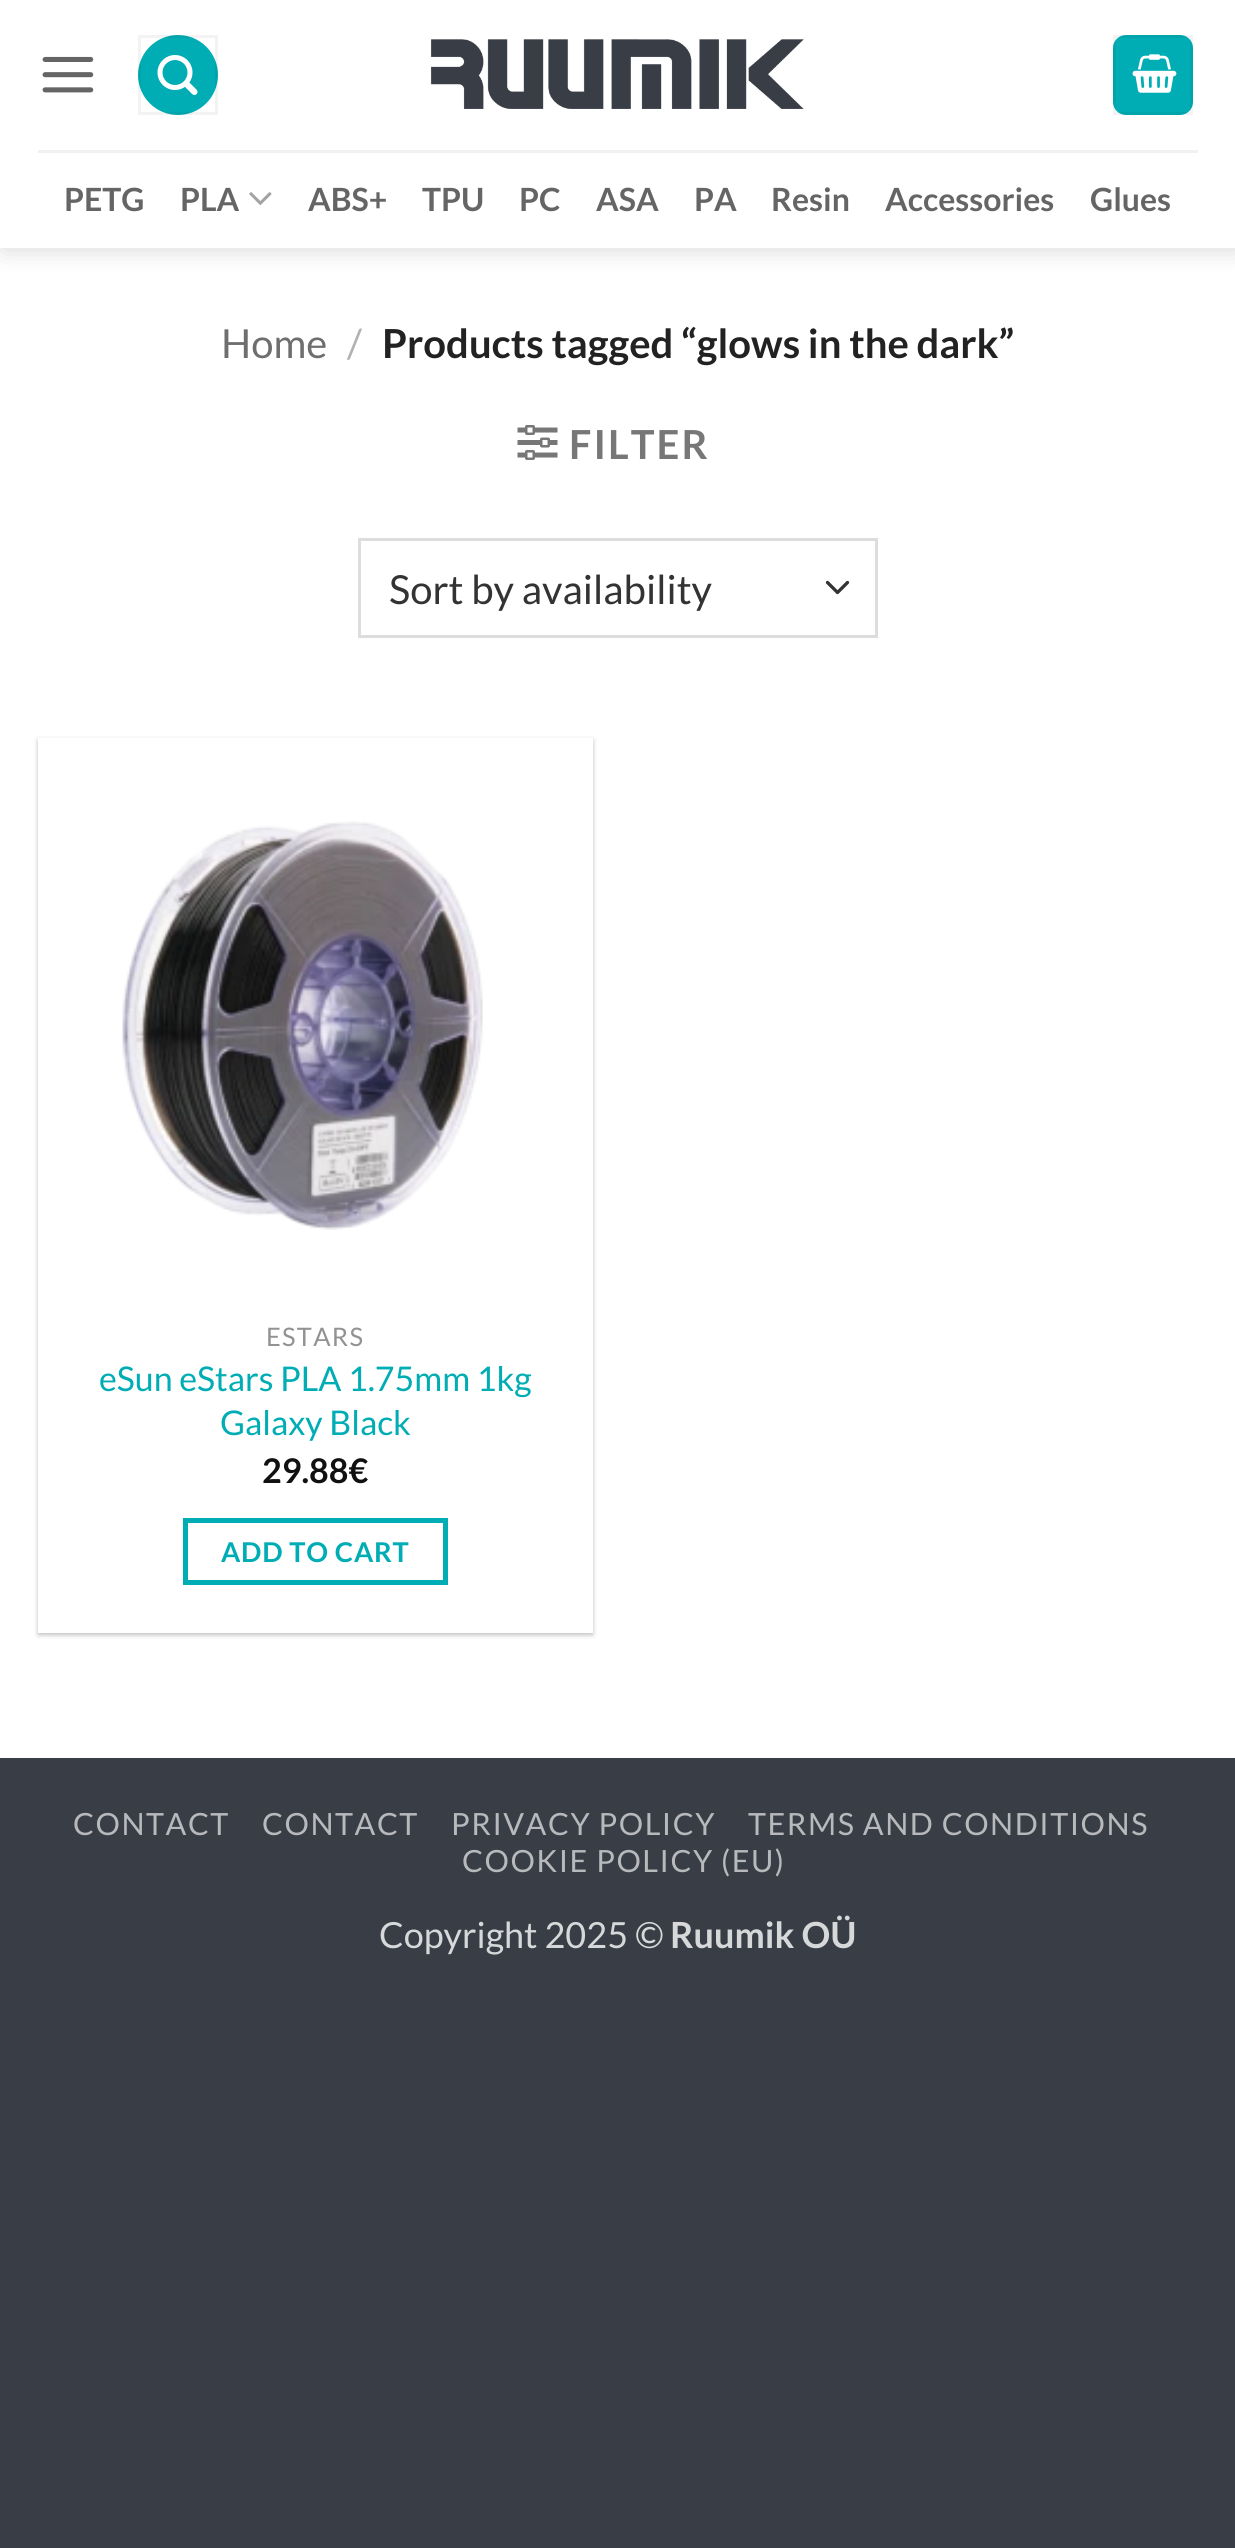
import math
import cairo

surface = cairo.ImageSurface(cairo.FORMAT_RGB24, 1235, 2548)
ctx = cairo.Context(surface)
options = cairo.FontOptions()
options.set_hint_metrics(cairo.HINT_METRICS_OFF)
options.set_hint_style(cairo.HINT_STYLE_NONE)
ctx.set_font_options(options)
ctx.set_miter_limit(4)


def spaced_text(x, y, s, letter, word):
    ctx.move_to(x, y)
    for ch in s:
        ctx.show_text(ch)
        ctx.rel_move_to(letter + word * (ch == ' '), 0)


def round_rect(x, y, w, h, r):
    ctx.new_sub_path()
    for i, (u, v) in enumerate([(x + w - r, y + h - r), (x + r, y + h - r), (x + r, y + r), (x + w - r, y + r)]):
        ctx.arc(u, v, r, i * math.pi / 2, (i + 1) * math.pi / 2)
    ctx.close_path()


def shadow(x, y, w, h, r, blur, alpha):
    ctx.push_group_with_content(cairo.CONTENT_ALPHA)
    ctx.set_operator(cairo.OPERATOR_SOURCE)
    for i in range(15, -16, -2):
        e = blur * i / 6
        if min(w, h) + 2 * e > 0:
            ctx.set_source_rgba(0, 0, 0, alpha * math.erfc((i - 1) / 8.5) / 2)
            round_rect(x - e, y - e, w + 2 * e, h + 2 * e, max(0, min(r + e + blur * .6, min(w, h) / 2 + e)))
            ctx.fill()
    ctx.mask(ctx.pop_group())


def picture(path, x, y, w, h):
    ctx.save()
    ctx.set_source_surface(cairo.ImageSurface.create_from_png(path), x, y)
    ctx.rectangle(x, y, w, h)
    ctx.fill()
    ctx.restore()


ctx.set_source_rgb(0.224, 0.243, 0.275)
ctx.paint()
ctx.set_source_rgb(1, 1, 1)
ctx.rectangle(0, 248, 1235, 1510)
ctx.fill()
ctx.set_source_rgb(0, 0, 0)
shadow(3, 3, 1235, 247, 0, 12.5, 0.15)
ctx.set_source_rgb(1, 1, 1)
ctx.rectangle(0, 0, 1235, 248)
ctx.fill()
picture("img1.png", 42, 56, 52, 37)
ctx.set_source_rgb(0, 0.678, 0.71)
ctx.arc(178, 75, 40, 0, 2 * math.pi)
ctx.fill()
ctx.rectangle(139.5, 36.5, 77, 77)
ctx.set_source_rgba(0, 0, 0, 0.05)
ctx.set_line_width(3)
ctx.stroke()
picture("img2.png", 157, 55, 41, 40)
picture("img3.png", 430, 39, 374, 70)
ctx.set_source_rgb(0, 0.678, 0.71)
round_rect(1113, 35, 80, 80, 13)
ctx.fill()
ctx.rectangle(1114.5, 36.5, 77, 77)
ctx.set_source_rgba(0, 0, 0, 0.05)
ctx.stroke()
picture("img4.png", 1132, 54, 45, 39)
ctx.set_source_rgb(0.945, 0.945, 0.945)
ctx.rectangle(38, 150, 1160, 3)
ctx.fill()
ctx.select_font_face("Lato", cairo.FONT_SLANT_NORMAL, cairo.FONT_WEIGHT_BOLD)
ctx.set_font_size(32)
ctx.set_source_rgb(0.396, 0.396, 0.396)
ctx.move_to(64, 211)
ctx.show_text("PETG")
ctx.move_to(180, 211)
ctx.show_text("PLA")
picture("img5.png", 249, 192, 23, 13)
ctx.move_to(308, 211)
ctx.show_text("ABS+")
ctx.move_to(422, 211)
ctx.show_text("TPU")
ctx.move_to(519, 211)
ctx.show_text("PC")
ctx.move_to(596, 211)
ctx.show_text("ASA")
ctx.move_to(694, 211)
ctx.show_text("PA")
ctx.move_to(771, 211)
ctx.show_text("Resin")
ctx.move_to(885, 211)
ctx.show_text("Accessories")
ctx.move_to(1090, 211)
ctx.show_text("Glues")
ctx.select_font_face("Lato")
ctx.set_font_size(40)
ctx.set_source_rgb(0.431, 0.431, 0.431)
ctx.move_to(221, 358)
ctx.show_text("Home")
ctx.set_source_rgb(0.698, 0.698, 0.698)
ctx.move_to(347, 358)
ctx.show_text("/")
ctx.select_font_face("Lato", cairo.FONT_SLANT_NORMAL, cairo.FONT_WEIGHT_BOLD)
ctx.set_source_rgb(0.133, 0.133, 0.133)
ctx.move_to(382, 358)
ctx.show_text("Products tagged “glows in the dark”")
picture("img6.png", 517, 425, 41, 35)
ctx.set_source_rgb(0.467, 0.467, 0.467)
spaced_text(569, 459, "FILTER", 2, 0)
ctx.new_path()
ctx.move_to(827.5, 582.5)
ctx.line_to(837.5, 592.5)
ctx.line_to(847.5, 582.5)
ctx.set_source_rgb(0.2, 0.2, 0.2)
ctx.set_line_width(3.3)
ctx.set_line_cap(cairo.LINE_CAP_ROUND)
ctx.set_line_join(cairo.LINE_JOIN_ROUND)
ctx.stroke()
ctx.rectangle(359.5, 539.5, 517, 97)
ctx.set_source_rgb(0.867, 0.867, 0.867)
ctx.set_line_width(3)
ctx.set_line_cap(cairo.LINE_CAP_BUTT)
ctx.set_line_join(cairo.LINE_JOIN_MITER)
ctx.stroke()
ctx.select_font_face("Lato")
ctx.set_source_rgb(0.2, 0.2, 0.2)
ctx.move_to(389, 604)
ctx.show_text("Sort by availability")
ctx.set_source_rgb(0, 0, 0)
shadow(38, 740, 555, 895, 0, 2.5, 0.24)
shadow(43, 745, 545, 885, 0, 4, 0.12)
ctx.set_source_rgb(1, 1, 1)
ctx.rectangle(38, 738, 555, 895)
ctx.fill()
picture("img7.png", 122, 821, 361, 409)
ctx.set_font_size(25.5)
ctx.set_source_rgb(0.573, 0.573, 0.573)
spaced_text(266, 1346, "ESTARS", 1.25, 0)
ctx.set_font_size(34)
ctx.set_source_rgb(0, 0.678, 0.71)
ctx.move_to(99, 1391)
ctx.show_text("eSun eStars PLA 1.75mm 1kg")
ctx.move_to(220, 1435)
ctx.show_text("Galaxy Black")
ctx.select_font_face("Lato", cairo.FONT_SLANT_NORMAL, cairo.FONT_WEIGHT_BOLD)
ctx.set_source_rgb(0.067, 0.067, 0.067)
ctx.move_to(262, 1483)
ctx.show_text("29.88€")
ctx.rectangle(185.5, 1520.5, 260, 62)
ctx.set_source_rgb(0, 0.678, 0.71)
ctx.set_line_width(5)
ctx.stroke()
ctx.set_font_size(27.25)
spaced_text(221, 1562, "ADD TO CART", 0.75, 0)
ctx.select_font_face("Lato")
ctx.set_font_size(30.6)
ctx.set_source_rgb(0.718, 0.725, 0.737)
spaced_text(73, 1835, "CONTACT", 1.5, 0)
spaced_text(262, 1835, "CONTACT", 1.5, 0)
spaced_text(451, 1835, "PRIVACY POLICY", 1.5, 0)
spaced_text(748, 1835, "TERMS AND CONDITIONS", 1.5, 0)
spaced_text(462, 1872, "COOKIE POLICY (EU)", 1.5, 0)
ctx.set_font_size(36)
ctx.set_source_rgb(0.843, 0.847, 0.855)
ctx.move_to(379, 1948)
ctx.show_text("Copyright 2025 ©")
ctx.select_font_face("Lato", cairo.FONT_SLANT_NORMAL, cairo.FONT_WEIGHT_BOLD)
ctx.move_to(670, 1948)
ctx.show_text("Ruumik OÜ")
surface.write_to_png("page.png")
